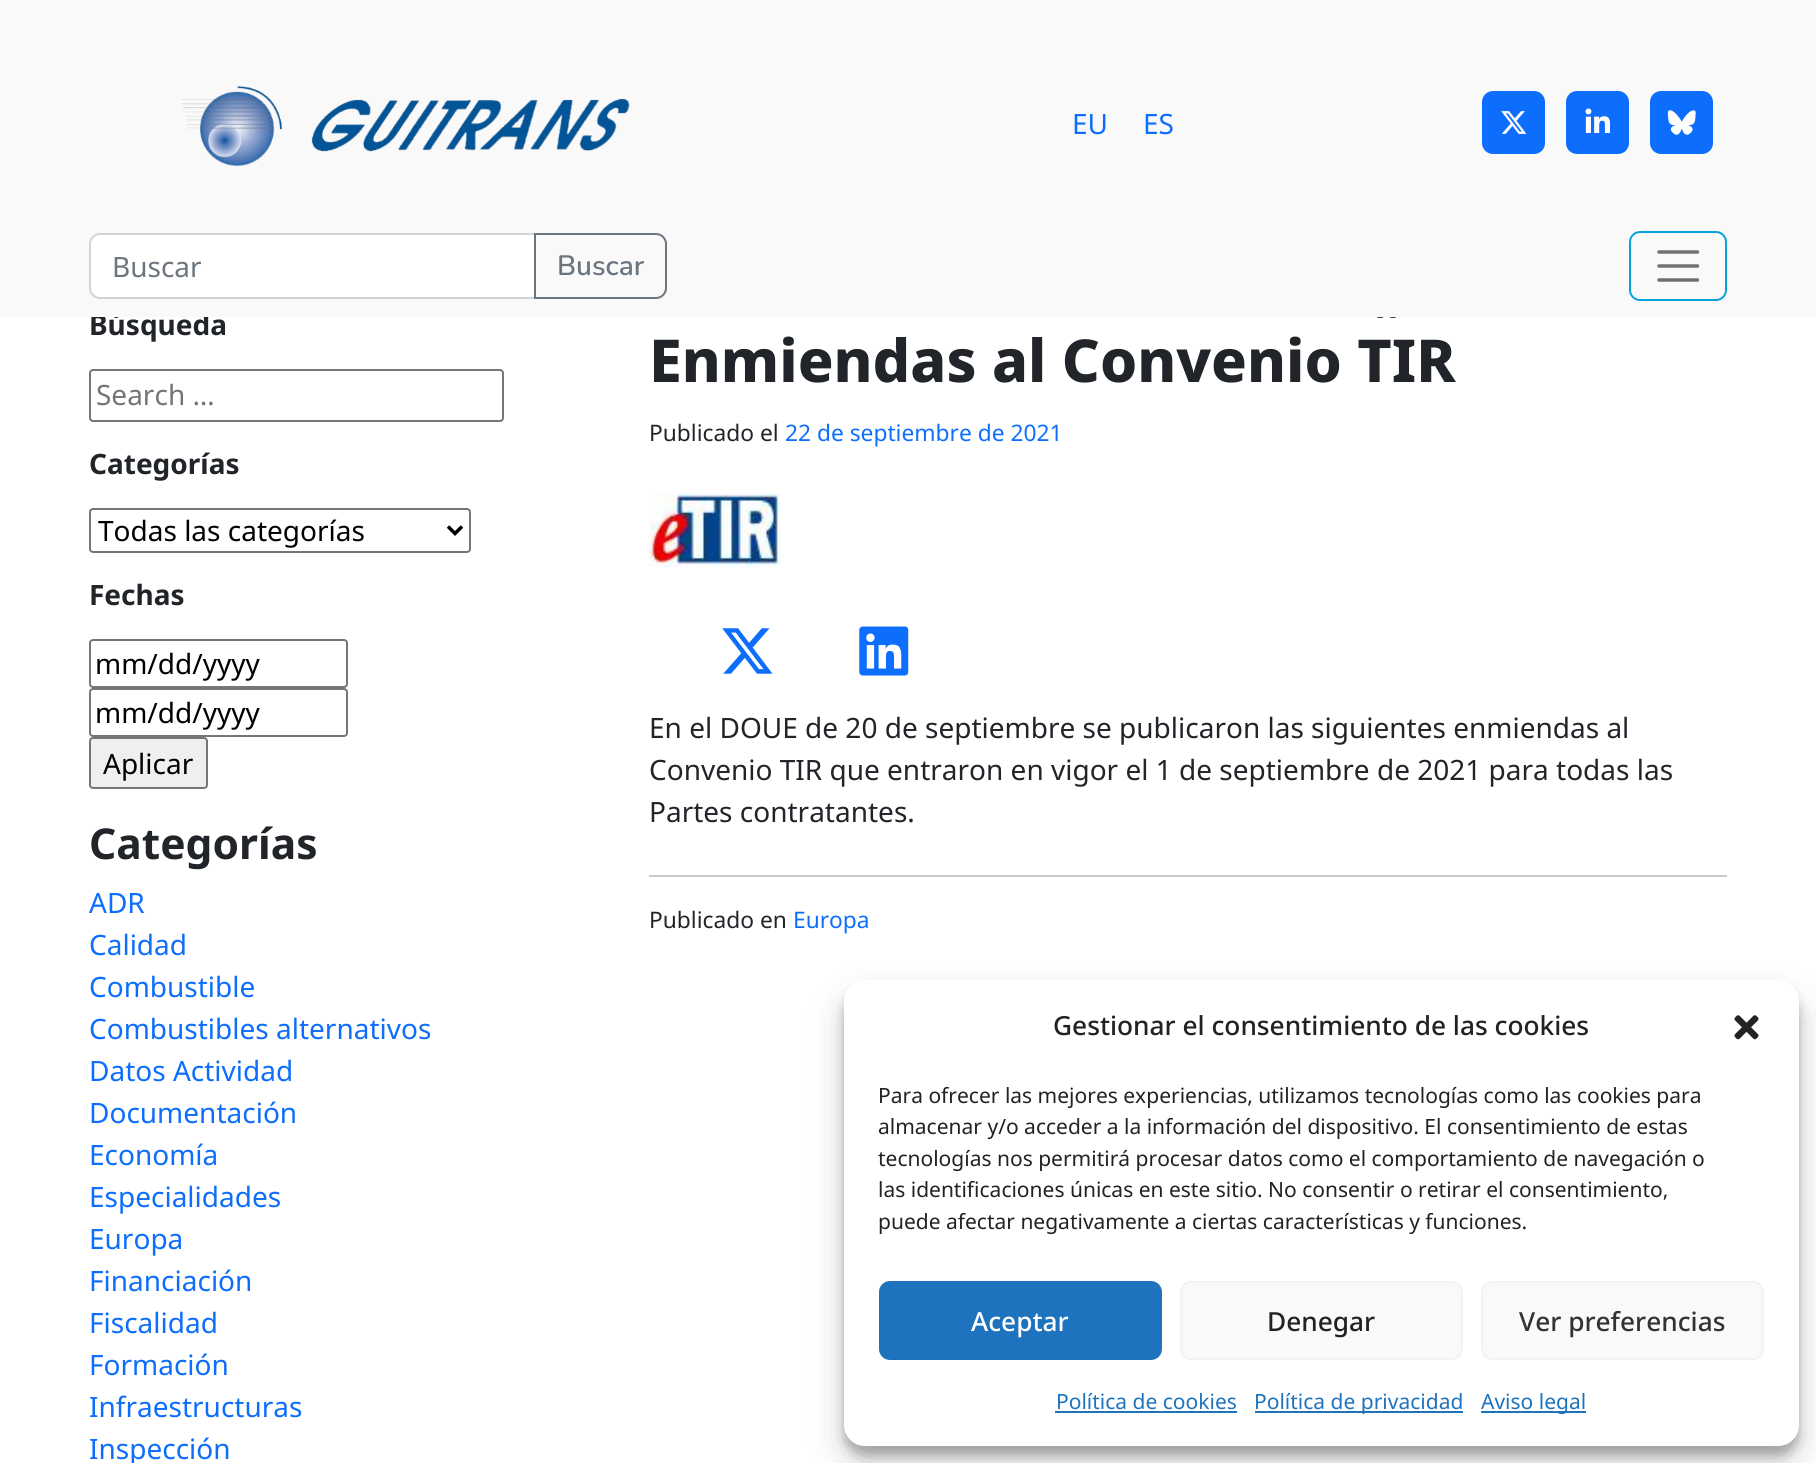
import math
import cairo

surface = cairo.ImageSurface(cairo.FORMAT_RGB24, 1816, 1463)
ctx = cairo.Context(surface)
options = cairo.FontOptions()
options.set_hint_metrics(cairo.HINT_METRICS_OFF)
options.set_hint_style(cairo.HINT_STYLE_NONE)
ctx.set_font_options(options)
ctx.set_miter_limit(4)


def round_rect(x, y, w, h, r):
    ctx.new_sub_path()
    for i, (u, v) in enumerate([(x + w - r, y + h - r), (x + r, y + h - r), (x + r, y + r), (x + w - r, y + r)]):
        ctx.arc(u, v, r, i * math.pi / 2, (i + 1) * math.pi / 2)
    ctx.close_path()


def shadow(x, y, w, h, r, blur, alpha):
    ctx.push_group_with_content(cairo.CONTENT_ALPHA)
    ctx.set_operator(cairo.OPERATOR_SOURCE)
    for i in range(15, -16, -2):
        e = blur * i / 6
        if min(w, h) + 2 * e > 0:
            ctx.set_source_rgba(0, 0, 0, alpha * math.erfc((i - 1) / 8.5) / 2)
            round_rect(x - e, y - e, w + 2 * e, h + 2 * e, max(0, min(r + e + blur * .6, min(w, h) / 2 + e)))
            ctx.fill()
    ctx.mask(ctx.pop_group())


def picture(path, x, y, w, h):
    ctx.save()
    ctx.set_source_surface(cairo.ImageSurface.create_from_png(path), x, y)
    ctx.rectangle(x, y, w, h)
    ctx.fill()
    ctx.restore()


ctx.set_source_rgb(1, 1, 1)
ctx.paint()
ctx.select_font_face("Noto Sans", cairo.FONT_SLANT_NORMAL, cairo.FONT_WEIGHT_BOLD)
ctx.set_font_size(28)
ctx.set_source_rgb(0.129, 0.145, 0.161)
ctx.move_to(89, 335)
ctx.show_text("Búsqueda")
ctx.set_source_rgb(0.973, 0.976, 0.98)
ctx.rectangle(0, 0, 1816, 317)
ctx.fill()
picture("img1.png", 181, 86, 449, 81)
ctx.select_font_face("Noto Sans")
ctx.set_source_rgb(0.051, 0.431, 0.992)
ctx.move_to(1072, 134)
ctx.show_text("EU")
ctx.move_to(1143, 134)
ctx.show_text("ES")
round_rect(1483, 92, 61, 61, 10)
ctx.fill_preserve()
ctx.stroke()
picture("img2.png", 1501, 111, 26, 23)
round_rect(1567, 92, 61, 61, 10)
ctx.fill_preserve()
ctx.stroke()
picture("img3.png", 1585, 108, 25, 25)
round_rect(1651, 92, 61, 61, 10)
ctx.fill_preserve()
ctx.stroke()
picture("img4.png", 1667, 110, 29, 25)
ctx.set_source_rgb(1, 1, 1)
ctx.new_path()
ctx.move_to(100, 234)
ctx.line_to(535, 234)
ctx.line_to(535, 298)
ctx.line_to(100, 298)
ctx.curve_to(94.5, 298, 90, 293.5, 90, 288)
ctx.line_to(90, 244)
ctx.curve_to(90, 238.5, 94.5, 234, 100, 234)
ctx.close_path()
ctx.fill_preserve()
ctx.set_source_rgb(0.808, 0.831, 0.855)
ctx.stroke()
ctx.set_source_rgb(0.424, 0.459, 0.49)
ctx.move_to(112, 277)
ctx.show_text("Buscar")
ctx.new_path()
ctx.move_to(535, 234)
ctx.line_to(656, 234)
ctx.curve_to(661.5, 234, 666, 238.5, 666, 244)
ctx.line_to(666, 288)
ctx.curve_to(666, 293.5, 661.5, 298, 656, 298)
ctx.line_to(535, 298)
ctx.close_path()
ctx.stroke()
ctx.select_font_face("Nunito SemiBold")
ctx.move_to(557, 275)
ctx.show_text("Buscar")
round_rect(1630, 232, 96, 68, 10)
ctx.set_source_rgb(0.024, 0.639, 0.855)
ctx.stroke()
ctx.new_path()
ctx.move_to(1659, 252)
ctx.line_to(1697.5, 252)
ctx.move_to(1659, 266)
ctx.line_to(1697.5, 266)
ctx.move_to(1659, 280)
ctx.line_to(1697.5, 280)
ctx.set_source_rgb(0.439, 0.439, 0.443)
ctx.set_line_width(3.5)
ctx.set_line_cap(cairo.LINE_CAP_ROUND)
ctx.stroke()
round_rect(90, 370, 413, 51, 3)
ctx.set_source_rgb(0.463, 0.463, 0.463)
ctx.set_line_width(2)
ctx.set_line_cap(cairo.LINE_CAP_BUTT)
ctx.stroke()
ctx.select_font_face("Noto Sans")
ctx.set_source_rgb(0.459, 0.459, 0.459)
ctx.move_to(96, 405)
ctx.show_text("Search …")
ctx.select_font_face("Noto Sans", cairo.FONT_SLANT_NORMAL, cairo.FONT_WEIGHT_BOLD)
ctx.set_source_rgb(0.129, 0.145, 0.161)
ctx.move_to(89, 474)
ctx.show_text("Categorías")
round_rect(90, 509, 380, 43, 3)
ctx.set_source_rgb(0.463, 0.463, 0.463)
ctx.stroke()
ctx.new_path()
ctx.move_to(448, 526.5)
ctx.line_to(455, 533.5)
ctx.line_to(462, 526.5)
ctx.set_source_rgb(0, 0, 0)
ctx.set_line_width(3.5)
ctx.stroke()
ctx.select_font_face("Noto Sans")
ctx.move_to(98, 541)
ctx.show_text("Todas las categorías")
ctx.select_font_face("Noto Sans", cairo.FONT_SLANT_NORMAL, cairo.FONT_WEIGHT_BOLD)
ctx.set_source_rgb(0.129, 0.145, 0.161)
ctx.move_to(89, 605)
ctx.show_text("Fechas")
round_rect(90, 640, 257, 47, 3)
ctx.set_source_rgb(0.463, 0.463, 0.463)
ctx.set_line_width(2)
ctx.stroke()
ctx.select_font_face("Noto Sans")
ctx.set_source_rgb(0, 0, 0)
ctx.move_to(95, 674)
ctx.show_text("mm/dd/yyyy")
round_rect(90, 689, 257, 47, 3)
ctx.set_source_rgb(0.463, 0.463, 0.463)
ctx.stroke()
ctx.set_source_rgb(0, 0, 0)
ctx.move_to(95, 723)
ctx.show_text("mm/dd/yyyy")
ctx.set_source_rgb(0.937, 0.937, 0.937)
round_rect(90, 738, 117, 50, 3)
ctx.fill_preserve()
ctx.set_source_rgb(0.463, 0.463, 0.463)
ctx.stroke()
ctx.set_source_rgb(0, 0, 0)
ctx.move_to(103, 774)
ctx.show_text("Aplicar")
ctx.select_font_face("Noto Sans", cairo.FONT_SLANT_NORMAL, cairo.FONT_WEIGHT_BOLD)
ctx.set_font_size(42.5)
ctx.set_source_rgb(0.129, 0.145, 0.161)
ctx.move_to(89, 859)
ctx.show_text("Categorías")
ctx.select_font_face("Noto Sans")
ctx.set_font_size(28)
ctx.set_source_rgb(0.051, 0.431, 0.992)
ctx.move_to(89, 913)
ctx.show_text("ADR")
ctx.move_to(89, 955)
ctx.show_text("Calidad")
ctx.move_to(89, 997)
ctx.show_text("Combustible")
ctx.move_to(89, 1039)
ctx.show_text("Combustibles alternativos")
ctx.move_to(89, 1081)
ctx.show_text("Datos Actividad")
ctx.move_to(89, 1123)
ctx.show_text("Documentación")
ctx.move_to(89, 1165)
ctx.show_text("Economía")
ctx.move_to(89, 1207)
ctx.show_text("Especialidades")
ctx.move_to(89, 1249)
ctx.show_text("Europa")
ctx.move_to(89, 1291)
ctx.show_text("Financiación")
ctx.move_to(89, 1333)
ctx.show_text("Fiscalidad")
ctx.move_to(89, 1375)
ctx.show_text("Formación")
ctx.move_to(89, 1417)
ctx.show_text("Infraestructuras")
ctx.move_to(89, 1459)
ctx.show_text("Inspección")
picture("img5.png", 1377, 317, 20, 1)
ctx.select_font_face("Noto Sans ExtraBold")
ctx.set_font_size(59.2)
ctx.set_source_rgb(0.129, 0.145, 0.161)
ctx.move_to(649, 382)
ctx.show_text("Enmiendas al Convenio TIR")
ctx.select_font_face("Noto Sans")
ctx.set_font_size(22.75)
ctx.move_to(649, 441)
ctx.show_text("Publicado el")
ctx.set_source_rgb(0.051, 0.431, 0.992)
ctx.move_to(785, 441)
ctx.show_text("22 de septiembre de 2021")
picture("img6.png", 649, 493, 132, 74)
picture("img7.png", 722, 628, 51, 46)
picture("img8.png", 859, 626, 50, 50)
ctx.set_font_size(28)
ctx.set_source_rgb(0.129, 0.145, 0.161)
ctx.move_to(649, 738)
ctx.show_text("En el DOUE de 20 de septiembre se publicaron las siguientes enmiendas al")
ctx.move_to(649, 780)
ctx.show_text("Convenio TIR que entraron en vigor el 1 de septiembre de 2021 para todas las")
ctx.move_to(649, 822)
ctx.show_text("Partes contratantes.")
ctx.set_source_rgb(0.784, 0.788, 0.792)
ctx.rectangle(649, 875, 1078, 2)
ctx.fill()
ctx.set_font_size(22.75)
ctx.set_source_rgb(0.129, 0.145, 0.161)
ctx.move_to(649, 928)
ctx.show_text("Publicado en")
ctx.set_source_rgb(0.051, 0.431, 0.992)
ctx.move_to(793, 928)
ctx.show_text("Europa")
ctx.set_source_rgb(0, 0, 0)
shadow(844, 991, 955, 465, 21, 5, 0.23)
shadow(844, 998, 955, 465, 21, 17.5, 0.19)
ctx.set_source_rgb(1, 1, 1)
round_rect(844, 980, 955, 466, 21)
ctx.fill()
ctx.select_font_face("Noto Sans Medium")
ctx.set_font_size(26.25)
ctx.set_source_rgb(0.133, 0.133, 0.133)
ctx.move_to(1053, 1035)
ctx.show_text("Gestionar el consentimiento de las cookies")
picture("img9.png", 1734, 1015, 25, 25)
ctx.select_font_face("Noto Sans")
ctx.set_font_size(21)
ctx.move_to(878, 1103)
ctx.show_text("Para ofrecer las mejores experiencias, utilizamos tecnologías como las cookies para")
ctx.move_to(878, 1134)
ctx.show_text("almacenar y/o acceder a la información del dispositivo. El consentimiento de estas")
ctx.move_to(878, 1166)
ctx.show_text("tecnologías nos permitirá procesar datos como el comportamiento de navegación o")
ctx.move_to(878, 1197)
ctx.show_text("las identificaciones únicas en este sitio. No consentir o retirar el consentimiento,")
ctx.move_to(878, 1229)
ctx.show_text("puede afectar negativamente a ciertas características y funciones.")
ctx.set_source_rgb(0.118, 0.451, 0.745)
round_rect(880, 1282, 281, 77, 10)
ctx.fill_preserve()
ctx.stroke()
ctx.select_font_face("Noto Sans Medium")
ctx.set_font_size(26.25)
ctx.set_source_rgb(1, 1, 1)
ctx.move_to(971, 1331)
ctx.show_text("Aceptar")
ctx.set_source_rgb(0.976, 0.976, 0.976)
round_rect(1181, 1282, 281, 77, 10)
ctx.fill_preserve()
ctx.set_source_rgb(0.949, 0.949, 0.949)
ctx.stroke()
ctx.set_source_rgb(0.133, 0.133, 0.133)
ctx.move_to(1267, 1331)
ctx.show_text("Denegar")
ctx.set_source_rgb(0.976, 0.976, 0.976)
round_rect(1482, 1282, 281, 77, 10)
ctx.fill_preserve()
ctx.set_source_rgb(0.949, 0.949, 0.949)
ctx.stroke()
ctx.set_source_rgb(0.2, 0.2, 0.2)
ctx.move_to(1519, 1331)
ctx.show_text("Ver preferencias")
ctx.select_font_face("Noto Sans")
ctx.set_font_size(21)
ctx.set_source_rgb(0.118, 0.451, 0.745)
ctx.move_to(1056, 1409)
ctx.show_text("Política de cookies")
ctx.rectangle(1055, 1411, 182, 2)
ctx.fill()
ctx.rectangle(1255, 1411, 208, 2)
ctx.fill()
ctx.move_to(1254, 1409)
ctx.show_text("Política de privacidad")
ctx.rectangle(1481, 1411, 105, 2)
ctx.fill()
ctx.move_to(1481, 1409)
ctx.show_text("Aviso legal")
surface.write_to_png("page.png")
